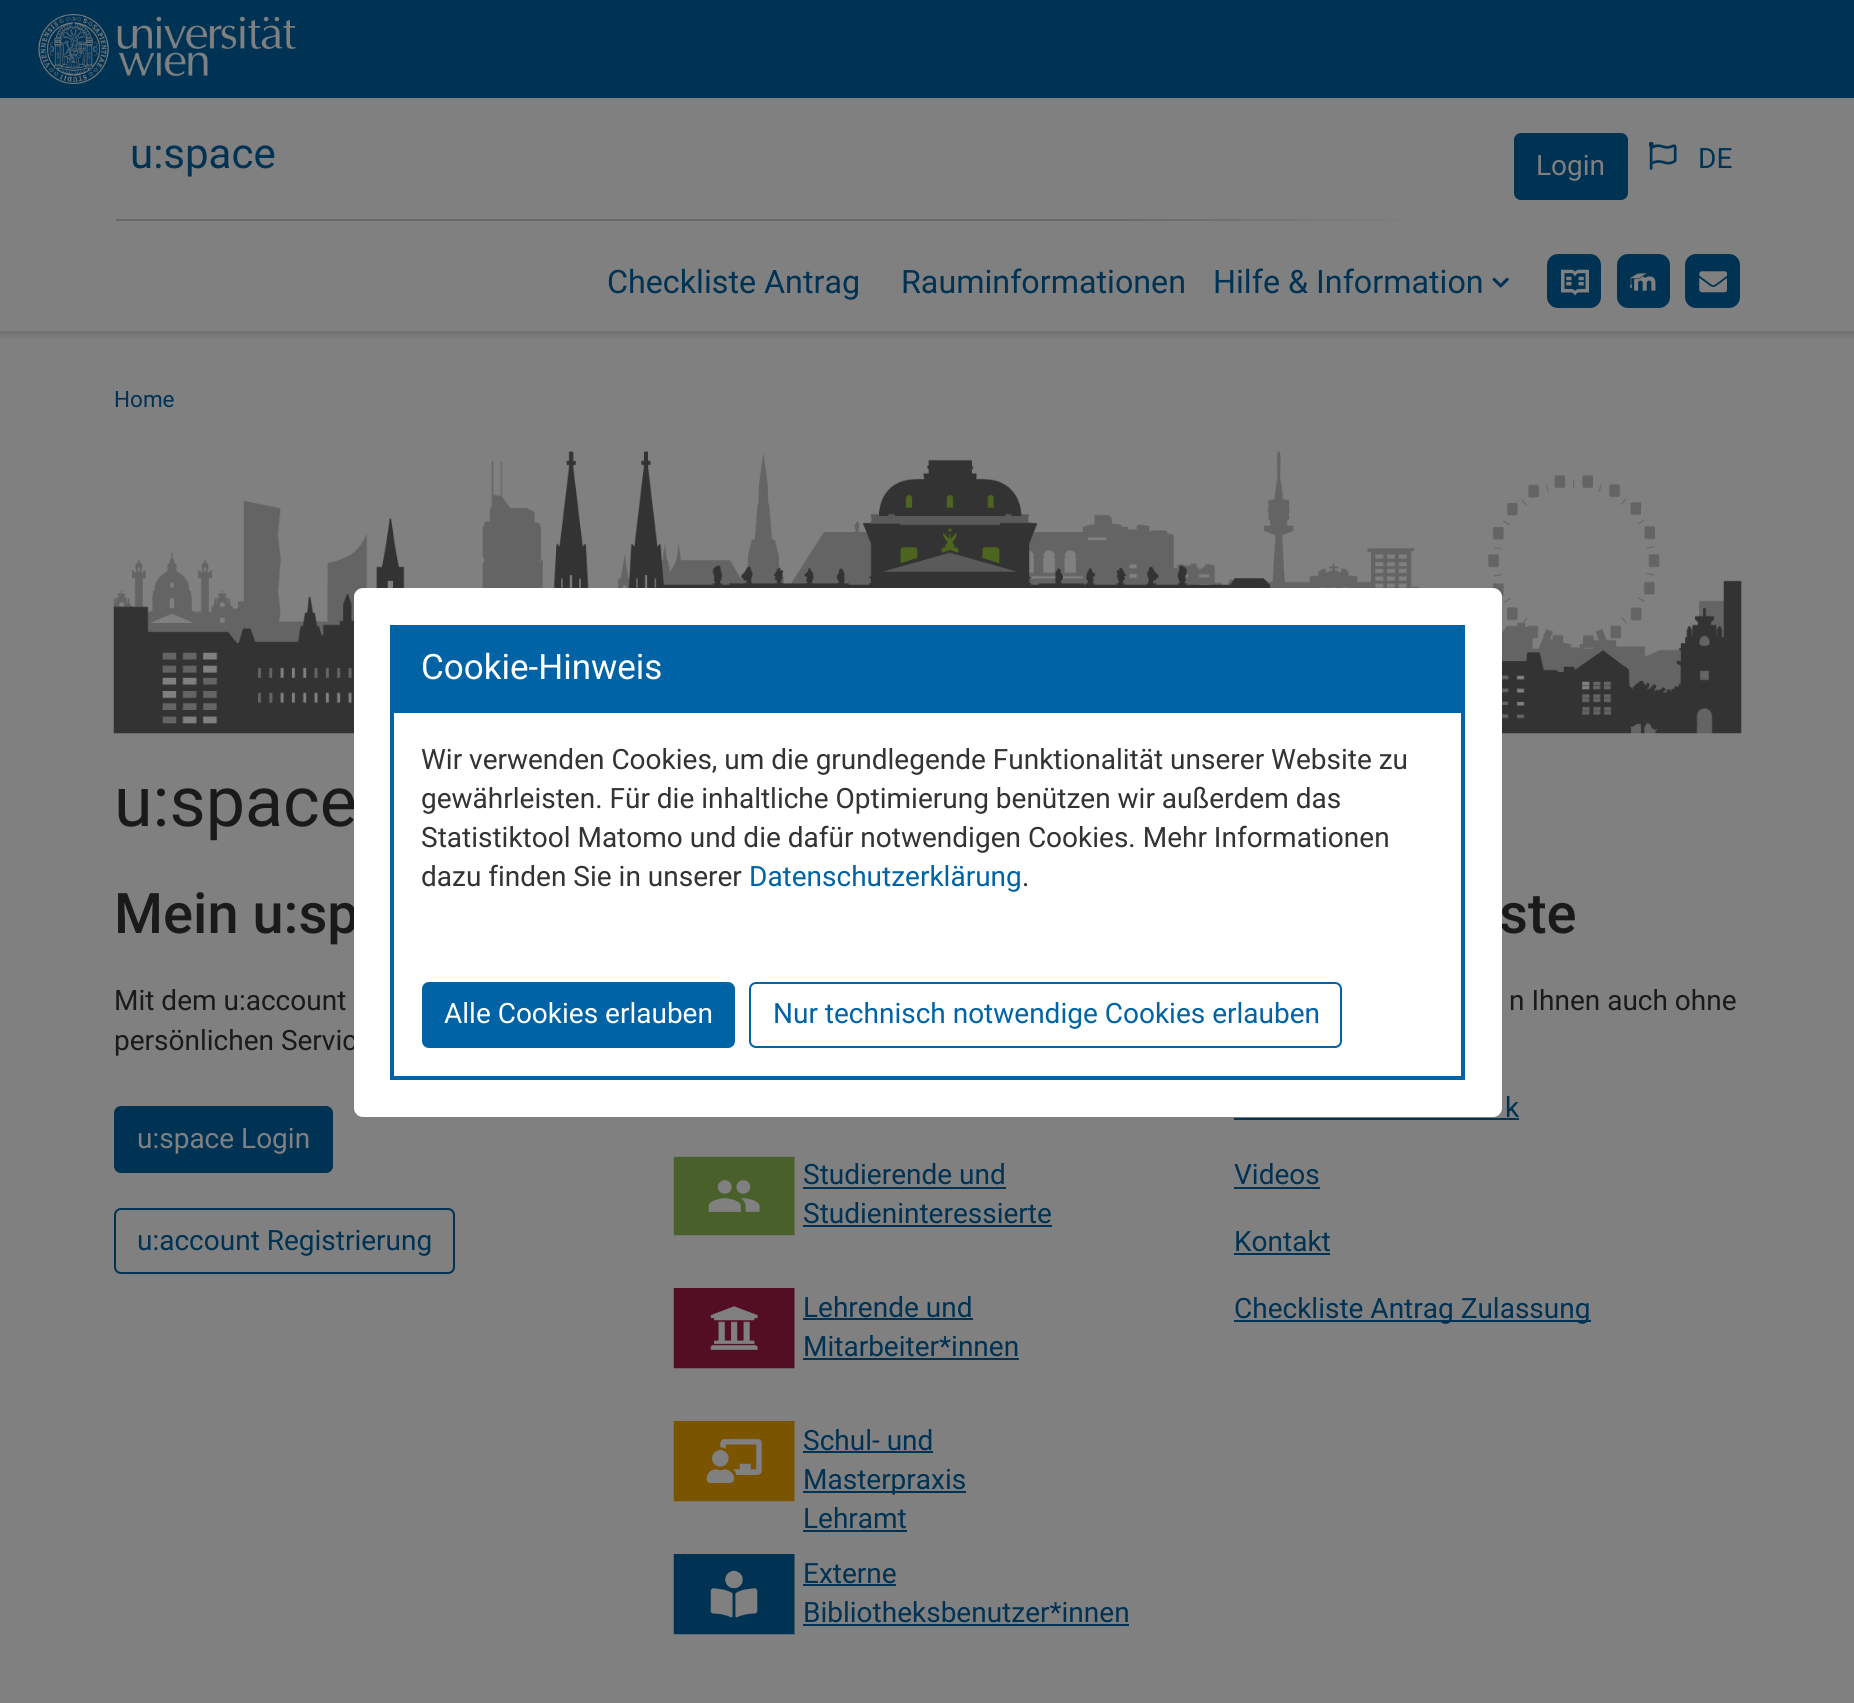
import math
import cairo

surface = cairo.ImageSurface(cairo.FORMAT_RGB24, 1854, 1703)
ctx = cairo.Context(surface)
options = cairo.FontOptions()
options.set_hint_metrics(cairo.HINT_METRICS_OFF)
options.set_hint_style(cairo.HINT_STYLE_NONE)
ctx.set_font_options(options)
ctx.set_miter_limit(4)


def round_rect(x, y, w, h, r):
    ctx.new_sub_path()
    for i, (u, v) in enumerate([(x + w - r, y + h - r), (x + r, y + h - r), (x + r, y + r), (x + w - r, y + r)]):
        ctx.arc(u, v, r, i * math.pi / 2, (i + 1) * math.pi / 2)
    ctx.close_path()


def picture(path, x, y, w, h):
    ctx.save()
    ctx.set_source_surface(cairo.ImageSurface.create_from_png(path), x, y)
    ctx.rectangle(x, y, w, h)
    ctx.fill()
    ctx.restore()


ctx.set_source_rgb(0.502, 0.502, 0.502)
ctx.paint()
ctx.set_source_rgb(0, 0.196, 0.325)
ctx.rectangle(0, 0, 1854, 98)
ctx.fill()
picture("img1.png", 38, 14, 258, 70)
ctx.select_font_face("Roboto")
ctx.set_font_size(42)
ctx.move_to(130, 168)
ctx.show_text("u:space")
round_rect(1515, 134, 112, 65, 6)
ctx.fill_preserve()
ctx.stroke()
ctx.set_font_size(28)
ctx.set_source_rgb(0.502, 0.502, 0.502)
ctx.move_to(1536, 175)
ctx.show_text("Login")
picture("img2.png", 1649, 142, 28, 28)
ctx.set_source_rgb(0, 0.196, 0.325)
ctx.move_to(1698, 168)
ctx.show_text("DE")
gradient = cairo.LinearGradient(116, 220, 1740, 220)
gradient.add_color_stop_rgba(0, 0.404, 0.416, 0.427, 1)
gradient.add_color_stop_rgba(0.62, 0.404, 0.416, 0.427, 1)
gradient.add_color_stop_rgba(0.81, 0.502, 0.502, 0.502, 1)
gradient.add_color_stop_rgba(1, 0.502, 0.502, 0.502, 1)
ctx.set_source(gradient)
ctx.rectangle(116, 219, 1285, 2)
ctx.fill()
ctx.set_font_size(32.25)
ctx.set_source_rgb(0, 0.196, 0.325)
ctx.move_to(607, 293)
ctx.show_text("Checkliste Antrag")
ctx.move_to(901, 293)
ctx.show_text("Rauminformationen")
ctx.move_to(1213, 293)
ctx.show_text("Hilfe & Information")
picture("img3.png", 1492, 277, 17, 11)
round_rect(1548, 255, 52, 52, 10)
ctx.fill_preserve()
ctx.stroke()
picture("img4.png", 1561, 269, 28, 27)
round_rect(1618, 255, 51, 52, 10)
ctx.fill_preserve()
ctx.stroke()
picture("img5.png", 1629, 272, 27, 19)
round_rect(1686, 255, 53, 52, 10)
ctx.fill_preserve()
ctx.stroke()
picture("img6.png", 1699, 271, 28, 22)
gradient = cairo.LinearGradient(928, 331, 928, 340)
gradient.add_color_stop_rgba(0, 0.435, 0.443, 0.451, 1)
gradient.add_color_stop_rgba(1, 0.502, 0.502, 0.502, 1)
ctx.set_source(gradient)
ctx.rectangle(0, 331, 1854, 8)
ctx.fill()
ctx.set_font_size(22.5)
ctx.set_source_rgb(0, 0.196, 0.325)
ctx.move_to(114, 407)
ctx.show_text("Home")
picture("img7.png", 113, 451, 1629, 283)
ctx.set_font_size(70)
ctx.set_source_rgb(0.102, 0.102, 0.102)
ctx.move_to(114, 826)
ctx.show_text("u:space")
ctx.select_font_face("Roboto Medium")
ctx.set_font_size(56)
ctx.move_to(114, 933)
ctx.show_text("Mein u:sp")
ctx.select_font_face("Roboto")
ctx.set_font_size(28)
ctx.move_to(114, 1010)
ctx.show_text("Mit dem u:account")
ctx.move_to(114, 1050)
ctx.show_text("persönlichen Servic")
ctx.set_source_rgb(0, 0.196, 0.325)
round_rect(115, 1107, 217, 65, 6)
ctx.fill_preserve()
ctx.stroke()
ctx.set_source_rgb(0.502, 0.502, 0.502)
ctx.move_to(137, 1148)
ctx.show_text("u:space Login")
round_rect(115, 1209, 339, 64, 6)
ctx.set_source_rgb(0, 0.196, 0.325)
ctx.stroke()
ctx.move_to(137, 1250)
ctx.show_text("u:account Registrierung")
ctx.select_font_face("Roboto Medium")
ctx.set_font_size(56)
ctx.set_source_rgb(0.102, 0.102, 0.102)
ctx.move_to(1499, 933)
ctx.show_text("ste")
ctx.select_font_face("Roboto")
ctx.set_font_size(28)
ctx.move_to(1509, 1010)
ctx.show_text("n Ihnen auch ohne")
ctx.set_source_rgb(0, 0.196, 0.325)
ctx.move_to(1505, 1117)
ctx.show_text("k")
ctx.rectangle(1234, 1118, 285, 2)
ctx.fill()
ctx.move_to(1234, 1184)
ctx.show_text("Videos")
ctx.rectangle(1234, 1187, 86, 2)
ctx.fill()
ctx.move_to(1234, 1251)
ctx.show_text("Kontakt")
ctx.rectangle(1234, 1253, 96, 2)
ctx.fill()
ctx.rectangle(1234, 1320, 357, 2)
ctx.fill()
ctx.move_to(1234, 1318)
ctx.show_text("Checkliste Antrag Zulassung")
picture("img8.png", 673, 1156, 122, 80)
ctx.move_to(803, 1184)
ctx.show_text("Studierende und")
ctx.rectangle(803, 1187, 203, 2)
ctx.fill()
ctx.move_to(803, 1223)
ctx.show_text("Studieninteressierte")
ctx.rectangle(803, 1225, 249, 2)
ctx.fill()
picture("img9.png", 673, 1288, 122, 81)
ctx.move_to(803, 1317)
ctx.show_text("Lehrende und")
ctx.rectangle(803, 1318, 170, 2)
ctx.fill()
ctx.move_to(803, 1356)
ctx.show_text("Mitarbeiter*innen")
ctx.rectangle(803, 1358, 216, 2)
ctx.fill()
picture("img10.png", 673, 1421, 122, 81)
ctx.move_to(803, 1450)
ctx.show_text("Schul- und")
ctx.rectangle(803, 1451, 130, 2)
ctx.fill()
ctx.rectangle(803, 1491, 163, 2)
ctx.fill()
ctx.move_to(803, 1489)
ctx.show_text("Masterpraxis")
ctx.move_to(803, 1528)
ctx.show_text("Lehramt")
ctx.rectangle(803, 1530, 104, 2)
ctx.fill()
picture("img11.png", 673, 1554, 122, 81)
ctx.move_to(803, 1583)
ctx.show_text("Externe")
ctx.rectangle(803, 1584, 93, 2)
ctx.fill()
ctx.move_to(803, 1622)
ctx.show_text("Bibliotheksbenutzer*innen")
ctx.rectangle(803, 1624, 326, 2)
ctx.fill()
ctx.set_source_rgb(1, 1, 1)
round_rect(354, 588, 1148, 529, 9)
ctx.fill()
ctx.set_source_rgb(0, 0.388, 0.651)
ctx.rectangle(390, 625, 1075, 84)
ctx.fill()
ctx.set_font_size(35)
ctx.set_source_rgb(1, 1, 1)
ctx.move_to(421, 679)
ctx.show_text("Cookie-Hinweis")
ctx.rectangle(392, 711, 1071, 367)
ctx.set_source_rgb(0, 0.388, 0.651)
ctx.set_line_width(4)
ctx.stroke()
ctx.set_font_size(28)
ctx.set_source_rgb(0.2, 0.2, 0.2)
ctx.move_to(421, 769)
ctx.show_text("Wir verwenden Cookies, um die grundlegende Funktionalität unserer Website zu")
ctx.move_to(421, 808)
ctx.show_text("gewährleisten. Für die inhaltliche Optimierung benützen wir außerdem das")
ctx.move_to(421, 847)
ctx.show_text("Statistiktool Matomo und die dafür notwendigen Cookies. Mehr Informationen")
ctx.move_to(421, 886)
ctx.show_text("dazu finden Sie in unserer")
ctx.set_source_rgb(0, 0.388, 0.651)
ctx.move_to(749, 886)
ctx.show_text("Datenschutzerklärung")
ctx.set_source_rgb(0.2, 0.2, 0.2)
ctx.move_to(1022, 886)
ctx.show_text(".")
ctx.set_source_rgb(0, 0.388, 0.651)
round_rect(423, 983, 311, 64, 6)
ctx.fill_preserve()
ctx.set_line_width(2)
ctx.stroke()
ctx.set_source_rgb(1, 1, 1)
ctx.move_to(444, 1023)
ctx.show_text("Alle Cookies erlauben")
round_rect(750, 983, 591, 64, 6)
ctx.set_source_rgb(0, 0.388, 0.651)
ctx.stroke()
ctx.move_to(773, 1023)
ctx.show_text("Nur technisch notwendige Cookies erlauben")
surface.write_to_png("page.png")
